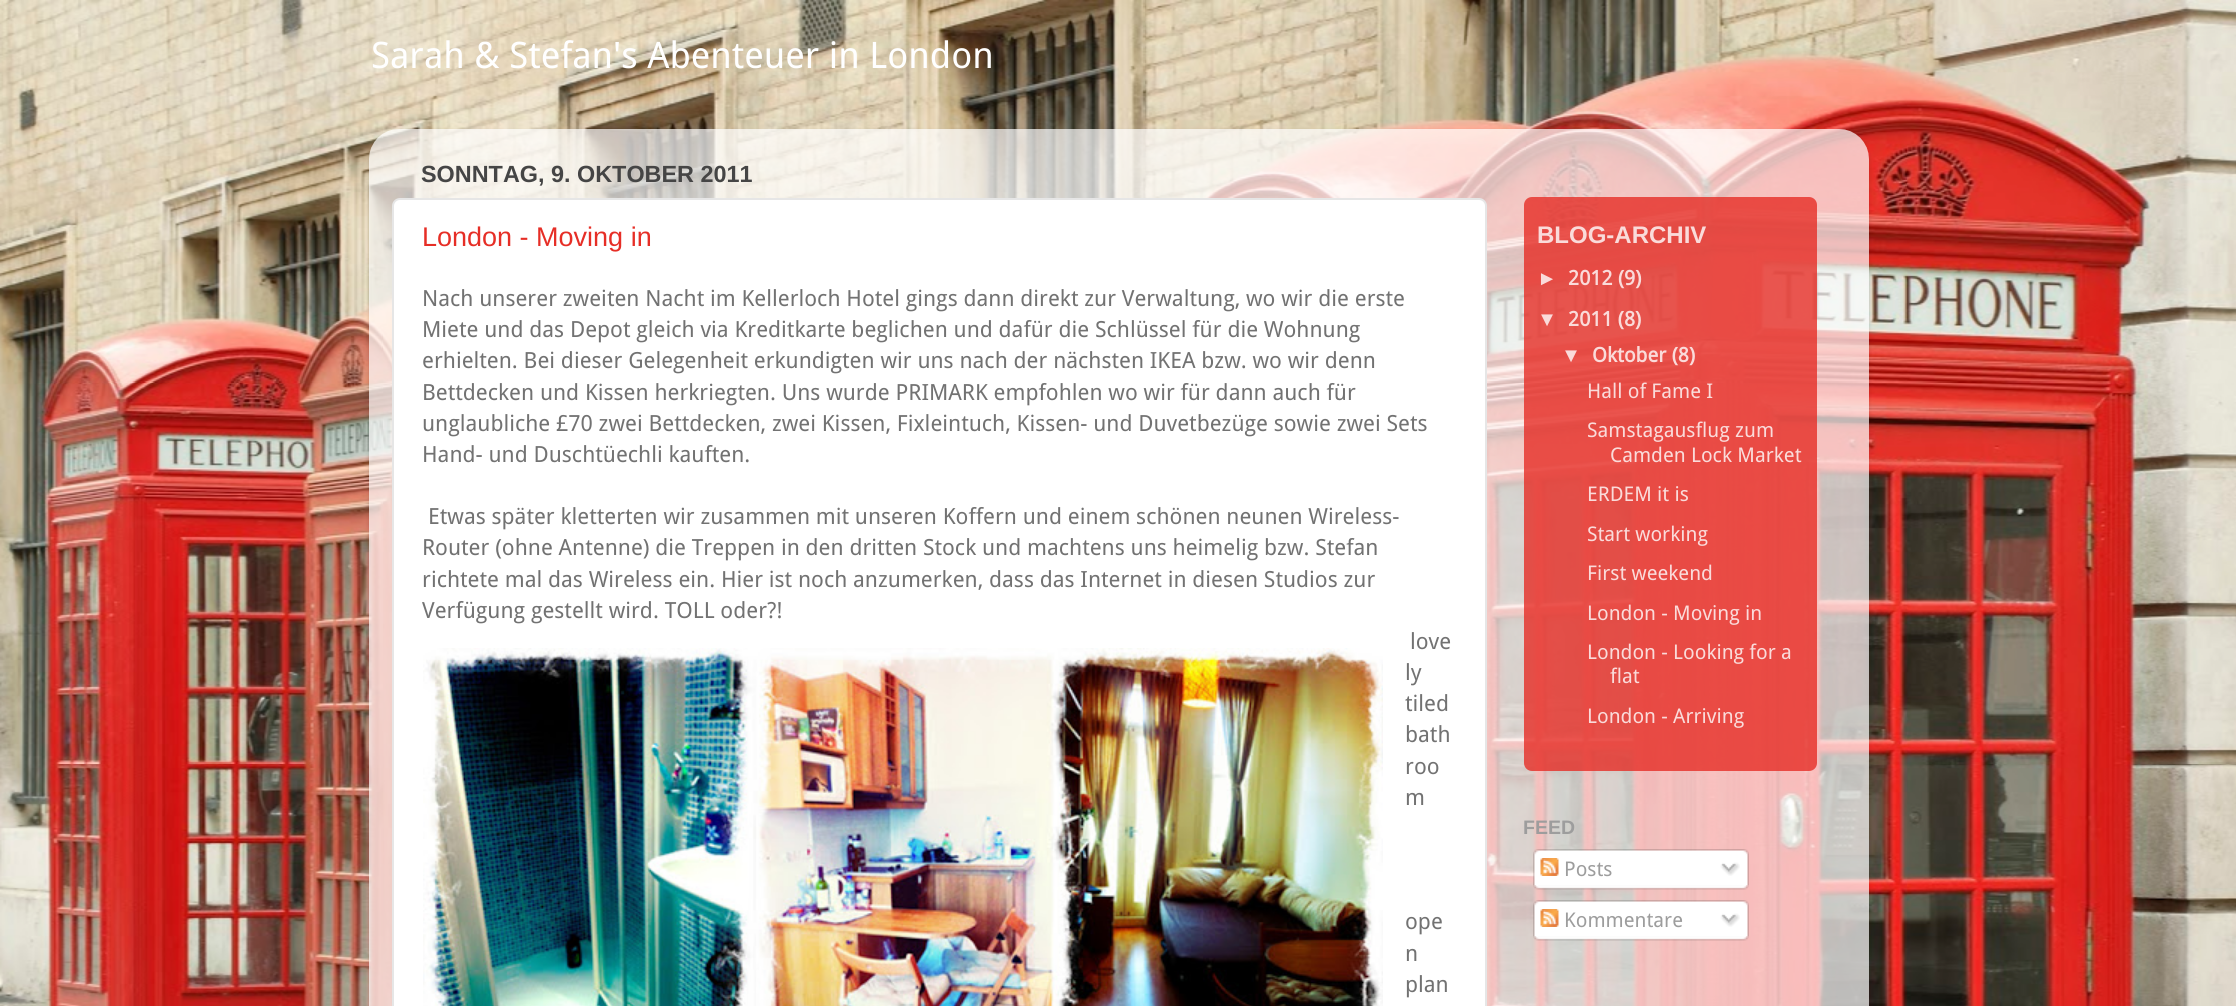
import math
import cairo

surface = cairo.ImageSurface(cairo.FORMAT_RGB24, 2236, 1006)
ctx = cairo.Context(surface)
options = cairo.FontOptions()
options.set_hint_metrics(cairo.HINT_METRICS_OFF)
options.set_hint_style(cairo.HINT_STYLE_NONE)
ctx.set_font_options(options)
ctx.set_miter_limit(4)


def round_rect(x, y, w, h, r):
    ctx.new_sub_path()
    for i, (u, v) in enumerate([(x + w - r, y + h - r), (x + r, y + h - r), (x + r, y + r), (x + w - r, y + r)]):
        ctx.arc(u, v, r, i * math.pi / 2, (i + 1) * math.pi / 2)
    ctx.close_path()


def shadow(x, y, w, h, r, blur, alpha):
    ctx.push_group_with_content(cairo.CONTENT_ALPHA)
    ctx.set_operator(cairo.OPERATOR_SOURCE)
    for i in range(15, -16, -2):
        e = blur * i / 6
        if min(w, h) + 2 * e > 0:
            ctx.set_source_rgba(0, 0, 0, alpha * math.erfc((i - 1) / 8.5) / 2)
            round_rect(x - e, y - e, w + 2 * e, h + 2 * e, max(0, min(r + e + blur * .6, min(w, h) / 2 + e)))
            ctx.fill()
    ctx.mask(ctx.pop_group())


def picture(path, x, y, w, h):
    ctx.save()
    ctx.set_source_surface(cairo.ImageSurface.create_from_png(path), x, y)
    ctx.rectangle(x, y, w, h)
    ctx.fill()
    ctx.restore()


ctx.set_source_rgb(1, 1, 1)
ctx.paint()
picture("img1.png", 0, 0, 2236, 1006)
ctx.select_font_face("Droid Sans")
ctx.set_font_size(36.5)
ctx.set_source_rgb(1, 1, 1)
ctx.move_to(371, 68)
ctx.show_text("Sarah & Stefan's Abenteuer in London")
ctx.save()
ctx.set_fill_rule(cairo.FILL_RULE_EVEN_ODD)
ctx.new_path()
ctx.move_to(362, 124)
ctx.line_to(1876, 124)
ctx.line_to(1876, 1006)
ctx.line_to(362, 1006)
ctx.close_path()
ctx.move_to(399, 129)
ctx.line_to(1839, 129)
ctx.curve_to(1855.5, 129, 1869, 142.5, 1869, 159)
ctx.line_to(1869, 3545)
ctx.line_to(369, 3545)
ctx.line_to(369, 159)
ctx.curve_to(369, 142.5, 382.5, 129, 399, 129)
ctx.close_path()
ctx.clip()
ctx.set_source_rgb(0, 0, 0)
shadow(369, 131, 1500, 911, 30, 2, 0.15)
ctx.restore()
picture("img2.png", 369, 129, 1500, 877)
ctx.select_font_face("Liberation Sans", cairo.FONT_SLANT_NORMAL, cairo.FONT_WEIGHT_BOLD)
ctx.set_font_size(23.4)
ctx.set_source_rgb(0.271, 0.271, 0.271)
ctx.move_to(421, 182)
ctx.show_text("SONNTAG, 9. OKTOBER 2011")
ctx.set_source_rgb(1, 1, 1)
round_rect(393, 199, 1093, 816, 7)
ctx.fill_preserve()
ctx.set_source_rgb(0.902, 0.902, 0.902)
ctx.stroke()
ctx.select_font_face("Liberation Sans")
ctx.set_font_size(27)
ctx.set_source_rgb(0.902, 0.18, 0.149)
ctx.move_to(422, 246)
ctx.show_text("London - Moving in")
ctx.select_font_face("Droid Sans")
ctx.set_font_size(22.25)
ctx.set_source_rgb(0.447, 0.447, 0.447)
ctx.move_to(422, 306)
ctx.show_text("Nach unserer zweiten Nacht im Kellerloch Hotel gings dann direkt zur Verwaltung, wo wir die erste")
ctx.move_to(422, 337)
ctx.show_text("Miete und das Depot gleich via Kreditkarte beglichen und dafür die Schlüssel für die Wohnung")
ctx.move_to(422, 368)
ctx.show_text("erhielten. Bei dieser Gelegenheit erkundigten wir uns nach der nächsten IKEA bzw. wo wir denn")
ctx.move_to(422, 400)
ctx.show_text("Bettdecken und Kissen herkriegten. Uns wurde PRIMARK empfohlen wo wir für dann auch für")
ctx.move_to(422, 431)
ctx.show_text("unglaubliche £70 zwei Bettdecken, zwei Kissen, Fixleintuch, Kissen- und Duvetbezüge sowie zwei Sets")
ctx.move_to(422, 462)
ctx.show_text("Hand- und Duschtüechli kauften.")
ctx.move_to(428, 524)
ctx.show_text("Etwas später kletterten wir zusammen mit unseren Koffern und einem schönen neunen Wireless-")
ctx.move_to(422, 555)
ctx.show_text("Router (ohne Antenne) die Treppen in den dritten Stock und machtens uns heimelig bzw. Stefan")
ctx.move_to(422, 587)
ctx.show_text("richtete mal das Wireless ein. Hier ist noch anzumerken, dass das Internet in diesen Studios zur")
ctx.move_to(422, 618)
ctx.show_text("Verfügung gestellt wird. TOLL oder?!")
ctx.move_to(1410, 649)
ctx.show_text("love")
picture("img3.png", 423, 648, 960, 358)
ctx.move_to(1405, 680)
ctx.show_text("ly")
ctx.move_to(1405, 711)
ctx.show_text("tiled")
ctx.move_to(1405, 742)
ctx.show_text("bath")
ctx.move_to(1405, 774)
ctx.show_text("roo")
ctx.move_to(1405, 805)
ctx.show_text("m")
ctx.move_to(1405, 929)
ctx.show_text("ope")
ctx.move_to(1405, 961)
ctx.show_text("n")
ctx.move_to(1405, 992)
ctx.show_text("plan")
ctx.set_source_rgba(0.902, 0.18, 0.149, 0.8)
round_rect(1524, 197, 293, 574, 8)
ctx.fill()
ctx.select_font_face("Liberation Sans", cairo.FONT_SLANT_NORMAL, cairo.FONT_WEIGHT_BOLD)
ctx.set_font_size(24)
ctx.set_source_rgb(0.98, 0.859, 0.855)
ctx.move_to(1537, 243)
ctx.show_text("BLOG-ARCHIV")
ctx.select_font_face("Liberation Sans")
ctx.set_font_size(20.25)
ctx.move_to(1537, 285)
ctx.show_text("►")
ctx.select_font_face("Droid Sans", cairo.FONT_SLANT_NORMAL, cairo.FONT_WEIGHT_BOLD)
ctx.move_to(1568, 285)
ctx.show_text("2012")
ctx.move_to(1618, 285)
ctx.show_text("(9)")
ctx.select_font_face("Liberation Sans")
ctx.move_to(1537, 326)
ctx.show_text("▼")
ctx.select_font_face("Droid Sans", cairo.FONT_SLANT_NORMAL, cairo.FONT_WEIGHT_BOLD)
ctx.move_to(1568, 326)
ctx.show_text("2011 (8)")
ctx.select_font_face("Liberation Sans")
ctx.move_to(1561, 362)
ctx.show_text("▼")
ctx.select_font_face("Droid Sans", cairo.FONT_SLANT_NORMAL, cairo.FONT_WEIGHT_BOLD)
ctx.move_to(1592, 362)
ctx.show_text("Oktober (8)")
ctx.select_font_face("Droid Sans")
ctx.move_to(1587, 398)
ctx.show_text("Hall of Fame I")
ctx.move_to(1587, 437)
ctx.show_text("Samstagausflug zum")
ctx.move_to(1610, 462)
ctx.show_text("Camden Lock Market")
ctx.move_to(1587, 501)
ctx.show_text("ERDEM it is")
ctx.move_to(1587, 541)
ctx.show_text("Start working")
ctx.move_to(1587, 580)
ctx.show_text("First weekend")
ctx.move_to(1587, 620)
ctx.show_text("London - Moving in")
ctx.move_to(1587, 659)
ctx.show_text("London - Looking for a")
ctx.move_to(1610, 683)
ctx.show_text("flat")
ctx.move_to(1587, 723)
ctx.show_text("London - Arriving")
ctx.select_font_face("Liberation Sans", cairo.FONT_SLANT_NORMAL, cairo.FONT_WEIGHT_BOLD)
ctx.set_font_size(19.5)
ctx.set_source_rgb(0.616, 0.616, 0.616)
ctx.move_to(1523, 834)
ctx.show_text("FEED")
picture("img4.png", 1533, 849, 216, 36)
picture("img5.png", 1540, 858, 19, 18)
ctx.select_font_face("Droid Sans")
ctx.set_font_size(20.25)
ctx.move_to(1564, 876)
ctx.show_text("Posts")
picture("img6.png", 1720, 862, 20, 14)
picture("img7.png", 1533, 885, 216, 5)
picture("img8.png", 1533, 900, 216, 36)
picture("img5.png", 1540, 909, 19, 18)
ctx.move_to(1564, 927)
ctx.show_text("Kommentare")
picture("img6.png", 1720, 913, 20, 14)
picture("img9.png", 1533, 936, 216, 5)
surface.write_to_png("page.png")
